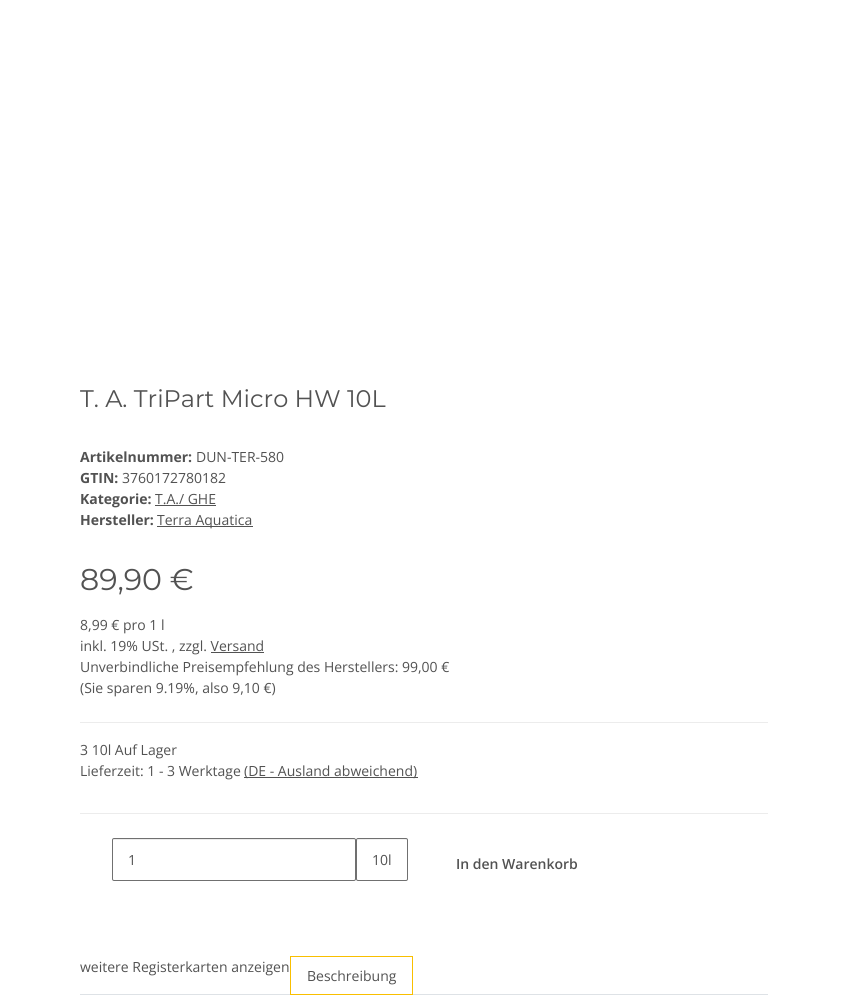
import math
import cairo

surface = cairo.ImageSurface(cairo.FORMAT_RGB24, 848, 1007)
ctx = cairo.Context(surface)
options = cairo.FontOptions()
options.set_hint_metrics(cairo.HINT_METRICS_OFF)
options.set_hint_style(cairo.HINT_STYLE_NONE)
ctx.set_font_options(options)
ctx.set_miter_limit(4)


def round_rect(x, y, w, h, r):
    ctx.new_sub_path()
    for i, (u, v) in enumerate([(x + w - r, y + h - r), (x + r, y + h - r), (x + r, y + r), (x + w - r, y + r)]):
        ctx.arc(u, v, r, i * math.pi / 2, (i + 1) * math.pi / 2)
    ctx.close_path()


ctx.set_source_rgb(1, 1, 1)
ctx.paint()
ctx.select_font_face("Montserrat")
ctx.set_font_size(24)
ctx.set_source_rgb(0.322, 0.322, 0.322)
ctx.move_to(80, 407)
ctx.show_text("T. A. TriPart Micro HW 10L")
ctx.select_font_face("Open Sans", cairo.FONT_SLANT_NORMAL, cairo.FONT_WEIGHT_BOLD)
ctx.set_font_size(14)
ctx.move_to(80, 462)
ctx.show_text("Artikelnummer:")
ctx.select_font_face("Open Sans")
ctx.move_to(196, 462)
ctx.show_text("DUN-TER-580")
ctx.select_font_face("Open Sans", cairo.FONT_SLANT_NORMAL, cairo.FONT_WEIGHT_BOLD)
ctx.move_to(80, 483)
ctx.show_text("GTIN:")
ctx.select_font_face("Open Sans")
ctx.move_to(122, 483)
ctx.show_text("3760172780182")
ctx.select_font_face("Open Sans", cairo.FONT_SLANT_NORMAL, cairo.FONT_WEIGHT_BOLD)
ctx.move_to(80, 504)
ctx.show_text("Kategorie:")
ctx.select_font_face("Open Sans")
ctx.move_to(155, 504)
ctx.show_text("T.A./ GHE")
ctx.rectangle(155, 505, 61, 1)
ctx.fill()
ctx.select_font_face("Open Sans", cairo.FONT_SLANT_NORMAL, cairo.FONT_WEIGHT_BOLD)
ctx.move_to(80, 525)
ctx.show_text("Hersteller:")
ctx.rectangle(157, 526, 96, 1)
ctx.fill()
ctx.select_font_face("Open Sans")
ctx.move_to(157, 525)
ctx.show_text("Terra Aquatica")
ctx.select_font_face("Montserrat")
ctx.set_font_size(30)
ctx.move_to(80, 590)
ctx.show_text("89,90 €")
ctx.select_font_face("Open Sans")
ctx.set_font_size(14)
ctx.move_to(80, 630)
ctx.show_text("8,99 € pro 1 l")
ctx.move_to(80, 651)
ctx.show_text("inkl. 19% USt. , zzgl. Versand")
ctx.rectangle(211, 652, 53, 1)
ctx.fill()
ctx.move_to(80, 672)
ctx.show_text("Unverbindliche Preisempfehlung des Herstellers: 99,00 €")
ctx.move_to(80, 693)
ctx.show_text("(Sie sparen 9.19%, also 9,10 €)")
ctx.set_source_rgb(0.922, 0.922, 0.922)
ctx.rectangle(80, 722, 688, 1)
ctx.fill()
ctx.rectangle(80, 813, 688, 1)
ctx.fill()
ctx.set_source_rgb(0.322, 0.322, 0.322)
ctx.move_to(80, 755)
ctx.show_text("3 10l Auf Lager")
ctx.move_to(80, 776)
ctx.show_text("Lieferzeit: 1 - 3 Werktage")
ctx.rectangle(244, 777, 174, 1)
ctx.fill()
ctx.move_to(244, 776)
ctx.show_text("(DE - Ausland abweichend)")
ctx.set_source_rgb(0.925, 0.925, 0.925)
ctx.new_path()
ctx.move_to(114, 840)
ctx.line_to(355, 840)
ctx.line_to(355, 841)
ctx.curve_to(355, 840, 355, 839, 354, 839)
ctx.line_to(114, 839)
ctx.curve_to(113, 839, 113, 840, 113, 841)
ctx.curve_to(113, 840, 113, 840, 114, 840)
ctx.close_path()
ctx.fill()
round_rect(112.5, 838.5, 243, 42, 1.5)
ctx.set_source_rgb(0.439, 0.439, 0.439)
ctx.set_line_width(1)
ctx.stroke()
ctx.set_source_rgb(0.322, 0.322, 0.322)
ctx.move_to(128, 865)
ctx.show_text("1")
ctx.set_source_rgb(0.925, 0.925, 0.925)
ctx.new_path()
ctx.move_to(358, 840)
ctx.curve_to(363, 840, 405, 839, 407, 840)
ctx.curve_to(407, 840, 407, 839, 406, 839)
ctx.line_to(366, 839)
ctx.curve_to(362, 839, 357, 837, 357, 841)
ctx.close_path()
ctx.fill()
round_rect(356.5, 838.5, 51, 42, 1.5)
ctx.set_source_rgb(0.439, 0.439, 0.439)
ctx.stroke()
ctx.set_source_rgb(0.322, 0.322, 0.322)
ctx.move_to(372, 865)
ctx.show_text("10l")
ctx.select_font_face("Open Sans SemiBold")
ctx.move_to(456, 869)
ctx.show_text("In den Warenkorb")
ctx.set_source_rgb(0.871, 0.886, 0.902)
ctx.rectangle(80, 994, 688, 1)
ctx.fill()
ctx.select_font_face("Open Sans")
ctx.set_source_rgb(0.322, 0.322, 0.322)
ctx.move_to(80, 972)
ctx.show_text("weitere Registerkarten anzeigen")
ctx.rectangle(290.5, 956.5, 122, 38)
ctx.set_source_rgb(0.973, 0.749, 0)
ctx.stroke()
ctx.set_source_rgb(0.322, 0.322, 0.322)
ctx.move_to(307, 981)
ctx.show_text("Beschreibung")
surface.write_to_png("page.png")
